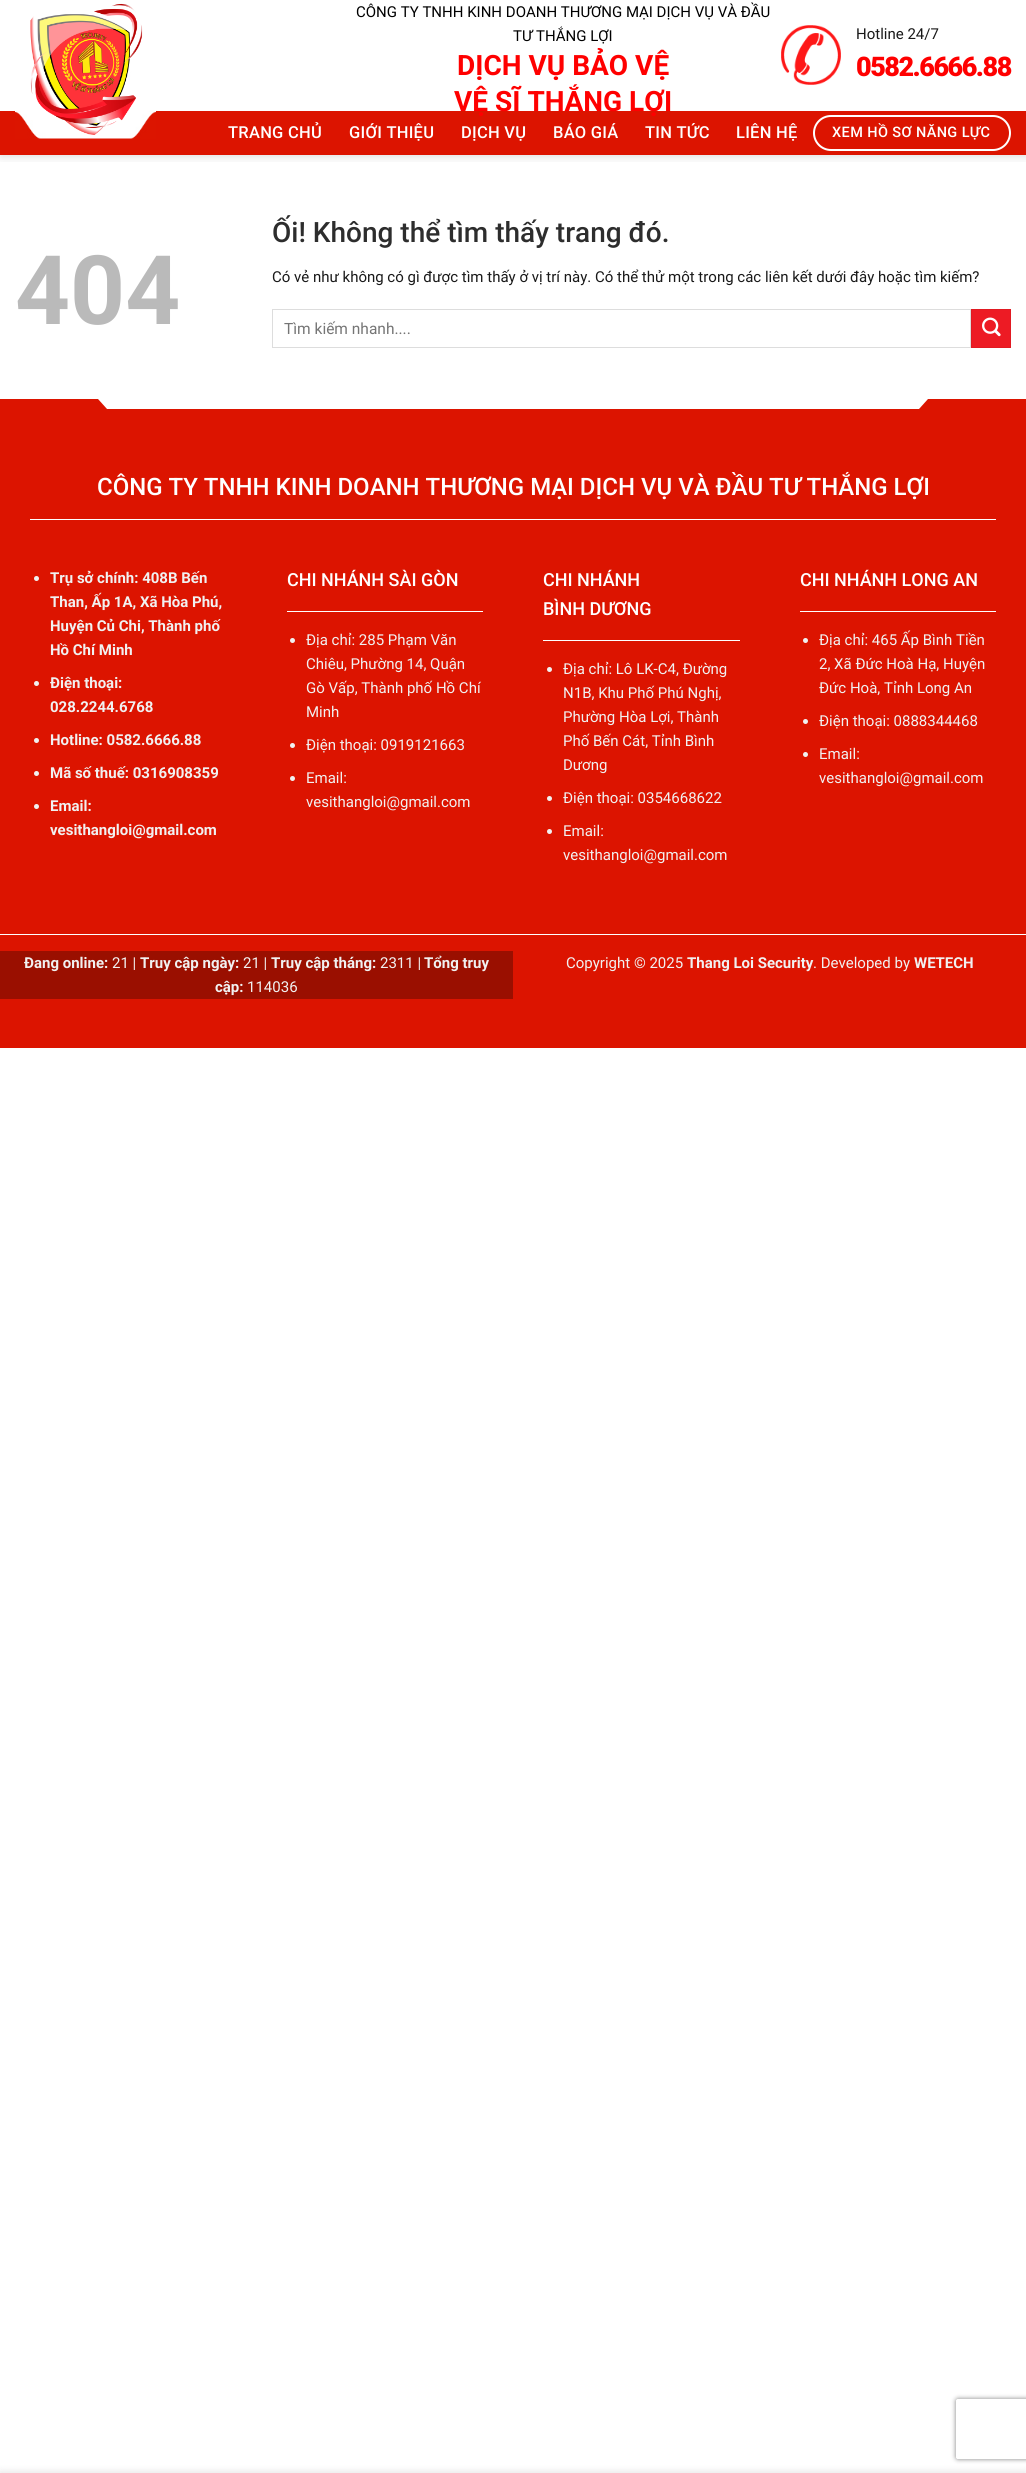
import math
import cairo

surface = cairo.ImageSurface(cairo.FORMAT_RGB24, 1026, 2473)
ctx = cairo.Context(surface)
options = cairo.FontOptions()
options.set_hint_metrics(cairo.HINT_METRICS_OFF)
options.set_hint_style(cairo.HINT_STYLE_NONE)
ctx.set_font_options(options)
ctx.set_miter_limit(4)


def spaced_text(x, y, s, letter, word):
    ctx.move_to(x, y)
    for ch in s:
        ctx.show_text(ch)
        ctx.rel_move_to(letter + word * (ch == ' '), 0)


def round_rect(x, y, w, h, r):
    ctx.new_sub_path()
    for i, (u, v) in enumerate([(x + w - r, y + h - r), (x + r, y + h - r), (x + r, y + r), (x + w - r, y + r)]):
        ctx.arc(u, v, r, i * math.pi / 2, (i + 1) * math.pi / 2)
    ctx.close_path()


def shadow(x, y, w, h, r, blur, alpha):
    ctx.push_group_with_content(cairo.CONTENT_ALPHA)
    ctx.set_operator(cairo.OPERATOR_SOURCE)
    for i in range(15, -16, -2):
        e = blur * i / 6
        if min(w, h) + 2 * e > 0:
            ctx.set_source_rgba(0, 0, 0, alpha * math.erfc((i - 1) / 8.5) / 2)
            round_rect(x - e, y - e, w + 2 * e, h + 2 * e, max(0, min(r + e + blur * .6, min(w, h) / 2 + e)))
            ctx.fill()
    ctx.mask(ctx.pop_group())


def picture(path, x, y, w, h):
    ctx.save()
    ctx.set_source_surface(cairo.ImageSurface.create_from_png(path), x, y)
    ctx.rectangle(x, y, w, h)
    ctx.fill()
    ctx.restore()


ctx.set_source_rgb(1, 1, 1)
ctx.paint()
ctx.save()
ctx.rectangle(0, 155, 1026, 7)
ctx.clip()
ctx.set_source_rgb(0, 0, 0)
shadow(1, 1, 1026, 155, 0, 5, 0.15)
ctx.restore()
ctx.set_source_rgb(0.863, 0.082, 0)
ctx.rectangle(0, 111, 1026, 44)
ctx.fill()
picture("img2.png", 15, 111, 141, 28)
picture("img1.png", 30, 3, 113, 132)
ctx.select_font_face("Roboto")
ctx.set_font_size(15)
ctx.set_source_rgb(0, 0, 0)
ctx.move_to(356, 17)
ctx.show_text("CÔNG TY TNHH KINH DOANH THƯƠNG MẠI DỊCH VỤ VÀ ĐẦU")
ctx.move_to(513, 41)
ctx.show_text("TƯ THẮNG LỢI")
ctx.select_font_face("Roboto", cairo.FONT_SLANT_NORMAL, cairo.FONT_WEIGHT_BOLD)
ctx.set_font_size(28)
ctx.set_source_rgb(1, 0, 0)
ctx.move_to(457, 75)
ctx.show_text("DỊCH VỤ BẢO VỆ")
ctx.move_to(454, 111)
ctx.show_text("VỆ SĨ THẮNG LỢI")
picture("img3.png", 781, 25, 60, 60)
ctx.select_font_face("Roboto")
ctx.set_font_size(15)
ctx.set_source_rgb(0.098, 0.098, 0.098)
ctx.move_to(856, 39)
ctx.show_text("Hotline 24/7")
ctx.select_font_face("Roboto Black")
ctx.set_font_size(27)
ctx.set_source_rgb(1, 0, 0)
spaced_text(856, 76, "0582.6666.88", -1.5, 0)
ctx.select_font_face("Roboto Medium")
ctx.set_font_size(16.5)
ctx.set_source_rgb(1, 1, 1)
spaced_text(228, 138, "TRANG CHỦ", 0.25, 0)
spaced_text(349, 138, "GIỚI THIỆU", 0.25, 0)
spaced_text(461, 138, "DỊCH VỤ", 0.25, 0)
spaced_text(553, 138, "BÁO GIÁ", 0.25, 0)
spaced_text(645, 138, "TIN TỨC", 0.25, 0)
spaced_text(736, 138, "LIÊN HỆ", 0.25, 0)
round_rect(814, 116, 196, 34, 17)
ctx.stroke()
ctx.set_font_size(14.5)
spaced_text(832, 137, "XEM HỒ SƠ NĂNG LỰC", 0.4, 0)
ctx.select_font_face("Roboto", cairo.FONT_SLANT_NORMAL, cairo.FONT_WEIGHT_BOLD)
ctx.set_font_size(96)
ctx.set_source_rgb(0.729, 0.729, 0.729)
ctx.move_to(15, 324)
ctx.show_text("404")
ctx.select_font_face("Roboto Medium")
ctx.set_font_size(28)
ctx.set_source_rgb(0.176, 0.176, 0.176)
ctx.move_to(272, 242)
ctx.show_text("Ối! Không thể tìm thấy trang đó.")
ctx.select_font_face("Roboto")
ctx.set_font_size(15)
ctx.set_source_rgb(0.098, 0.098, 0.098)
ctx.move_to(272, 282)
ctx.show_text("Có vẻ như không có gì được tìm thấy ở vị trí này. Có thể thử một trong các liên kết dưới đây hoặc tìm kiếm?")
ctx.rectangle(272.5, 309.5, 698, 38)
ctx.set_source_rgb(0.867, 0.867, 0.867)
ctx.set_line_width(1)
ctx.stroke()
ctx.set_font_size(15.5)
ctx.set_source_rgb(0.459, 0.459, 0.459)
ctx.move_to(284, 334)
ctx.show_text("Tìm kiếm nhanh....")
ctx.set_source_rgb(0.929, 0.106, 0.141)
ctx.rectangle(971.5, 309.5, 39, 38)
ctx.fill_preserve()
ctx.set_source_rgb(0.882, 0.102, 0.133)
ctx.stroke()
picture("img4.png", 982, 317, 19, 20)
ctx.set_source_rgb(0.863, 0.082, 0)
ctx.rectangle(0, 399, 1026, 649)
ctx.fill()
ctx.set_source_rgb(1, 1, 1)
ctx.new_path()
ctx.move_to(312, 399)
ctx.line_to(928, 399)
ctx.line_to(919, 409)
ctx.line_to(304, 409)
ctx.close_path()
ctx.fill()
ctx.new_path()
ctx.move_to(98, 399)
ctx.line_to(714, 399)
ctx.line_to(722, 409)
ctx.line_to(107, 409)
ctx.close_path()
ctx.fill()
ctx.select_font_face("Roboto Medium")
ctx.set_font_size(24)
ctx.move_to(97, 495)
ctx.show_text("CÔNG TY TNHH KINH DOANH THƯƠNG MẠI DỊCH VỤ VÀ ĐẦU TƯ THẮNG LỢI")
ctx.rectangle(30, 519, 966, 1)
ctx.fill()
ctx.set_source_rgb(0.945, 0.945, 0.945)
ctx.arc(36.5, 578.5, 2.5, 0, 2 * math.pi)
ctx.fill()
ctx.select_font_face("Roboto", cairo.FONT_SLANT_NORMAL, cairo.FONT_WEIGHT_BOLD)
ctx.set_font_size(15)
ctx.move_to(50, 583)
ctx.show_text("Trụ sở chính: 408B Bến")
ctx.move_to(50, 607)
ctx.show_text("Than, Ấp 1A, Xã Hòa Phú,")
ctx.move_to(50, 631)
ctx.show_text("Huyện Củ Chi, Thành phố")
ctx.move_to(50, 655)
ctx.show_text("Hồ Chí Minh")
ctx.new_path()
ctx.arc(36.5, 683.5, 2.5, 0, 2 * math.pi)
ctx.fill()
ctx.move_to(50, 688)
ctx.show_text("Điện thoại:")
ctx.move_to(50, 712)
ctx.show_text("028.2244.6768")
ctx.new_path()
ctx.arc(36.5, 740.5, 2.5, 0, 2 * math.pi)
ctx.fill()
ctx.move_to(50, 745)
ctx.show_text("Hotline: 0582.6666.88")
ctx.new_path()
ctx.arc(36.5, 773.5, 2.5, 0, 2 * math.pi)
ctx.fill()
ctx.move_to(50, 778)
ctx.show_text("Mã số thuế: 0316908359")
ctx.new_path()
ctx.arc(36.5, 806.5, 2.5, 0, 2 * math.pi)
ctx.fill()
ctx.move_to(50, 811)
ctx.show_text("Email:")
ctx.move_to(50, 835)
ctx.show_text("vesithangloi@gmail.com")
ctx.select_font_face("Roboto Medium")
ctx.set_font_size(18)
ctx.set_source_rgb(1, 1, 1)
ctx.move_to(287, 586)
ctx.show_text("CHI NHÁNH SÀI GÒN")
ctx.rectangle(287, 611, 196, 1)
ctx.fill()
ctx.set_source_rgb(0.945, 0.945, 0.945)
ctx.arc(292.5, 640.5, 2.5, 0, 2 * math.pi)
ctx.fill()
ctx.select_font_face("Roboto")
ctx.set_font_size(15)
ctx.move_to(306, 645)
ctx.show_text("Địa chỉ: 285 Phạm Văn")
ctx.move_to(306, 669)
ctx.show_text("Chiêu, Phường 14, Quận")
ctx.move_to(306, 693)
ctx.show_text("Gò Vấp, Thành phố Hồ Chí")
ctx.move_to(306, 717)
ctx.show_text("Minh")
ctx.new_path()
ctx.arc(292.5, 745.5, 2.5, 0, 2 * math.pi)
ctx.fill()
ctx.move_to(306, 750)
ctx.show_text("Điện thoại: 0919121663")
ctx.new_path()
ctx.arc(292.5, 778.5, 2.5, 0, 2 * math.pi)
ctx.fill()
ctx.move_to(306, 783)
ctx.show_text("Email:")
ctx.move_to(306, 807)
ctx.show_text("vesithangloi@gmail.com")
ctx.select_font_face("Roboto Medium")
ctx.set_font_size(18)
ctx.set_source_rgb(1, 1, 1)
ctx.move_to(543, 586)
ctx.show_text("CHI NHÁNH")
ctx.move_to(543, 615)
ctx.show_text("BÌNH DƯƠNG")
ctx.rectangle(543, 640, 197, 1)
ctx.fill()
ctx.set_source_rgb(0.945, 0.945, 0.945)
ctx.arc(549.5, 669.5, 2.5, 0, 2 * math.pi)
ctx.fill()
ctx.select_font_face("Roboto")
ctx.set_font_size(15)
ctx.move_to(563, 674)
ctx.show_text("Địa chỉ: Lô LK-C4, Đường")
ctx.move_to(563, 698)
ctx.show_text("N1B, Khu Phố Phú Nghị,")
ctx.move_to(563, 722)
ctx.show_text("Phường Hòa Lợi, Thành")
ctx.move_to(563, 746)
ctx.show_text("Phố Bến Cát, Tỉnh Bình")
ctx.move_to(563, 770)
ctx.show_text("Dương")
ctx.new_path()
ctx.arc(549.5, 798.5, 2.5, 0, 2 * math.pi)
ctx.fill()
ctx.move_to(563, 803)
ctx.show_text("Điện thoại: 0354668622")
ctx.new_path()
ctx.arc(549.5, 831.5, 2.5, 0, 2 * math.pi)
ctx.fill()
ctx.move_to(563, 836)
ctx.show_text("Email:")
ctx.move_to(563, 860)
ctx.show_text("vesithangloi@gmail.com")
ctx.select_font_face("Roboto Medium")
ctx.set_font_size(18)
ctx.set_source_rgb(1, 1, 1)
ctx.move_to(800, 586)
ctx.show_text("CHI NHÁNH LONG AN")
ctx.rectangle(800, 611, 196, 1)
ctx.fill()
ctx.set_source_rgb(0.945, 0.945, 0.945)
ctx.arc(805.5, 640.5, 2.5, 0, 2 * math.pi)
ctx.fill()
ctx.select_font_face("Roboto")
ctx.set_font_size(15)
ctx.move_to(819, 645)
ctx.show_text("Địa chỉ: 465 Ấp Bình Tiền")
ctx.move_to(819, 669)
ctx.show_text("2, Xã Đức Hoà Hạ, Huyện")
ctx.move_to(819, 693)
ctx.show_text("Đức Hoà, Tỉnh Long An")
ctx.new_path()
ctx.arc(805.5, 721.5, 2.5, 0, 2 * math.pi)
ctx.fill()
ctx.move_to(819, 726)
ctx.show_text("Điện thoại: 0888344468")
ctx.new_path()
ctx.arc(805.5, 754.5, 2.5, 0, 2 * math.pi)
ctx.fill()
ctx.move_to(819, 759)
ctx.show_text("Email:")
ctx.move_to(819, 783)
ctx.show_text("vesithangloi@gmail.com")
ctx.set_source_rgb(1, 1, 1)
ctx.rectangle(0, 934, 1026, 1)
ctx.fill()
ctx.set_source_rgb(0.604, 0.059, 0)
ctx.rectangle(0, 951, 513, 48)
ctx.fill()
ctx.select_font_face("Roboto", cairo.FONT_SLANT_NORMAL, cairo.FONT_WEIGHT_BOLD)
ctx.set_source_rgb(0.945, 0.945, 0.945)
ctx.move_to(24, 968)
ctx.show_text("Đang online:")
ctx.select_font_face("Roboto")
ctx.move_to(112, 968)
ctx.show_text("21 |")
ctx.select_font_face("Roboto", cairo.FONT_SLANT_NORMAL, cairo.FONT_WEIGHT_BOLD)
ctx.move_to(140, 968)
ctx.show_text("Truy cập ngày:")
ctx.select_font_face("Roboto")
ctx.move_to(243, 968)
ctx.show_text("21 |")
ctx.select_font_face("Roboto", cairo.FONT_SLANT_NORMAL, cairo.FONT_WEIGHT_BOLD)
ctx.move_to(271, 968)
ctx.show_text("Truy cập tháng:")
ctx.select_font_face("Roboto")
ctx.move_to(380, 968)
ctx.show_text("2311 |")
ctx.select_font_face("Roboto", cairo.FONT_SLANT_NORMAL, cairo.FONT_WEIGHT_BOLD)
ctx.move_to(424, 968)
ctx.show_text("Tổng truy")
ctx.move_to(215, 992)
ctx.show_text("cập:")
ctx.select_font_face("Roboto")
ctx.move_to(247, 992)
ctx.show_text("114036")
ctx.move_to(566, 968)
ctx.show_text("Copyright © 2025")
ctx.select_font_face("Roboto", cairo.FONT_SLANT_NORMAL, cairo.FONT_WEIGHT_BOLD)
ctx.move_to(687, 968)
ctx.show_text("Thang Loi Security")
ctx.select_font_face("Roboto")
ctx.move_to(813, 968)
ctx.show_text(". Developed by")
ctx.select_font_face("Roboto", cairo.FONT_SLANT_NORMAL, cairo.FONT_WEIGHT_BOLD)
ctx.move_to(914, 968)
ctx.show_text("WETECH")
ctx.save()
ctx.set_fill_rule(cairo.FILL_RULE_EVEN_ODD)
ctx.new_path()
ctx.move_to(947, 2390)
ctx.line_to(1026, 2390)
ctx.line_to(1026, 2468)
ctx.line_to(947, 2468)
ctx.close_path()
ctx.move_to(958, 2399)
ctx.line_to(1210, 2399)
ctx.curve_to(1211, 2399, 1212, 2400, 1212, 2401)
ctx.line_to(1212, 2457)
ctx.curve_to(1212, 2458, 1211, 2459, 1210, 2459)
ctx.line_to(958, 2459)
ctx.curve_to(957, 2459, 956, 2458, 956, 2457)
ctx.line_to(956, 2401)
ctx.curve_to(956, 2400, 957, 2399, 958, 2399)
ctx.close_path()
ctx.clip()
ctx.set_source_rgb(0.502, 0.502, 0.502)
shadow(956, 2399, 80, 60, 2, 2.5, 1)
ctx.restore()
ctx.set_source_rgb(0, 0, 0)
shadow(0, 2473, 1026, 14, 0, 4.5, 0.14)
surface.write_to_png("page.png")
